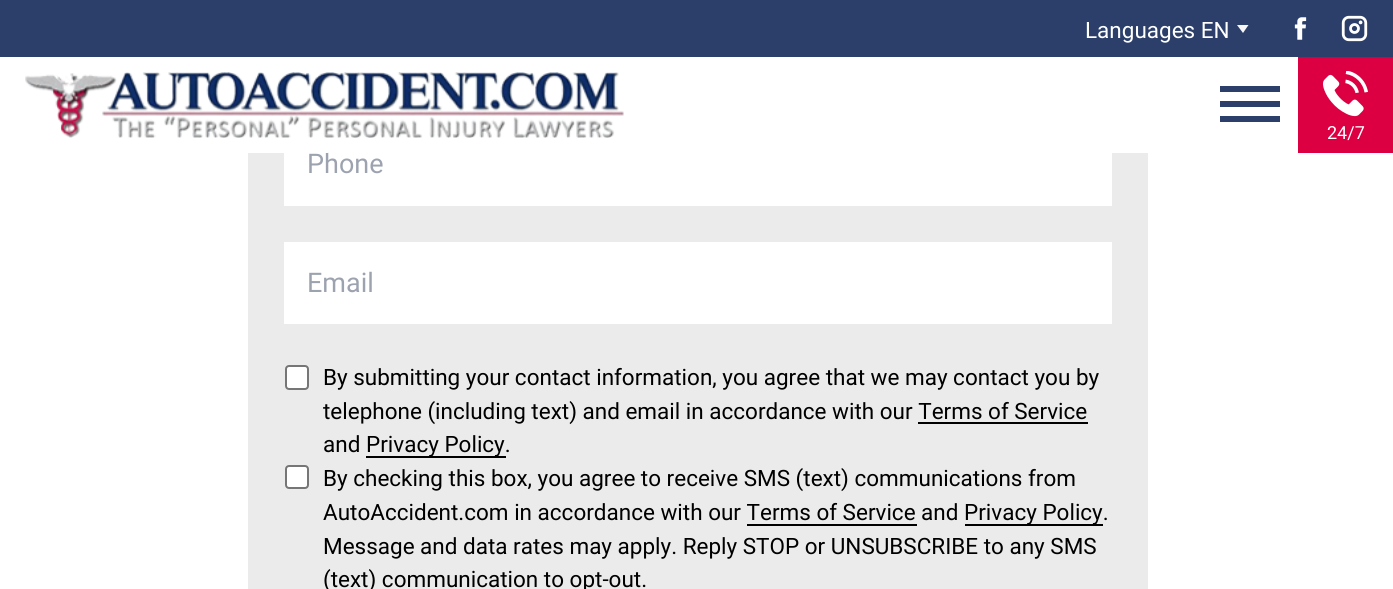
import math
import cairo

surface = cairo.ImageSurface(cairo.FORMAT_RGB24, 1393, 589)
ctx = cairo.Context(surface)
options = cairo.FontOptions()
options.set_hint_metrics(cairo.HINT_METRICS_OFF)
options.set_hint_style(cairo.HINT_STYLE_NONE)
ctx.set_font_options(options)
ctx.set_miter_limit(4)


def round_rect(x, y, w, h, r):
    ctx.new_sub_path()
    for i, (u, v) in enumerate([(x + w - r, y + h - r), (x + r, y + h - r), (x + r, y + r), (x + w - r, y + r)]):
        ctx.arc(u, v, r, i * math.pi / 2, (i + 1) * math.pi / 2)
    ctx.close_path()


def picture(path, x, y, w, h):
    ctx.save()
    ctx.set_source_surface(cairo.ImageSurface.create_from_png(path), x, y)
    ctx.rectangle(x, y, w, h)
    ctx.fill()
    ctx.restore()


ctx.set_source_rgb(1, 1, 1)
ctx.paint()
ctx.set_source_rgb(0.918, 0.918, 0.918)
ctx.rectangle(248, 153, 900, 436)
ctx.fill()
ctx.set_source_rgb(1, 1, 1)
ctx.rectangle(284, 153, 828, 53)
ctx.fill()
ctx.select_font_face("Roboto")
ctx.set_font_size(27)
ctx.set_source_rgb(0.612, 0.639, 0.686)
ctx.move_to(307, 173)
ctx.show_text("Phone")
ctx.set_source_rgb(1, 1, 1)
ctx.rectangle(325, 152, 3, 1)
ctx.fill()
ctx.set_source_rgb(0.169, 0.247, 0.416)
ctx.rectangle(0, 0, 1393, 57)
ctx.fill()
ctx.set_font_size(22.5)
ctx.set_source_rgb(1, 1, 1)
ctx.move_to(1085, 38)
ctx.show_text("Languages EN")
ctx.set_source_rgb(0.965, 0.965, 0.965)
ctx.new_path()
ctx.move_to(1243, 33)
ctx.line_to(1237, 25)
ctx.line_to(1248.5, 25)
ctx.close_path()
ctx.fill()
picture("img1.png", 1294, 17, 13, 23)
picture("img2.png", 1341, 15, 27, 27)
picture("img3.png", 25, 72, 599, 66)
ctx.set_source_rgb(0.169, 0.247, 0.416)
ctx.rectangle(1220, 86, 60, 6)
ctx.fill()
ctx.rectangle(1220, 101, 60, 6)
ctx.fill()
ctx.rectangle(1220, 116, 60, 6)
ctx.fill()
ctx.set_source_rgb(0.863, 0, 0.263)
ctx.rectangle(1298, 57, 95, 96)
ctx.fill()
picture("img4.png", 1323, 71, 45, 46)
ctx.set_font_size(18)
ctx.set_source_rgb(1, 1, 1)
ctx.move_to(1327, 139)
ctx.show_text("24/7")
ctx.rectangle(284, 242, 828, 82)
ctx.fill()
ctx.set_font_size(27)
ctx.set_source_rgb(0.612, 0.639, 0.686)
ctx.move_to(307, 292)
ctx.show_text("Email")
ctx.set_source_rgb(1, 1, 1)
round_rect(286, 366, 22, 23, 3)
ctx.fill_preserve()
ctx.set_source_rgb(0.463, 0.463, 0.463)
ctx.stroke()
ctx.set_font_size(22.5)
ctx.set_source_rgb(0, 0, 0)
ctx.move_to(323, 385)
ctx.show_text("By submitting your contact information, you agree that we may contact you by")
ctx.move_to(323, 419)
ctx.show_text("telephone (including text) and email in accordance with our Terms of Service")
ctx.rectangle(918, 422, 170, 2)
ctx.fill()
ctx.move_to(323, 452)
ctx.show_text("and")
ctx.rectangle(366, 456, 140, 2)
ctx.fill()
ctx.move_to(366, 452)
ctx.show_text("Privacy Policy.")
ctx.set_source_rgb(1, 1, 1)
round_rect(286, 466, 22, 22, 3)
ctx.fill_preserve()
ctx.set_source_rgb(0.463, 0.463, 0.463)
ctx.stroke()
ctx.set_source_rgb(0, 0, 0)
ctx.move_to(323, 486)
ctx.show_text("By checking this box, you agree to receive SMS (text) communications from")
ctx.move_to(323, 520)
ctx.show_text("AutoAccident.com in accordance with our Terms of Service and")
ctx.rectangle(965, 524, 138, 2)
ctx.fill()
ctx.move_to(964, 520)
ctx.show_text("Privacy Policy.")
ctx.rectangle(747, 524, 170, 2)
ctx.fill()
ctx.move_to(323, 554)
ctx.show_text("Message and data rates may apply. Reply STOP or UNSUBSCRIBE to any SMS")
ctx.move_to(323, 587)
ctx.show_text("(text) communication to opt-out.")
surface.write_to_png("page.png")
